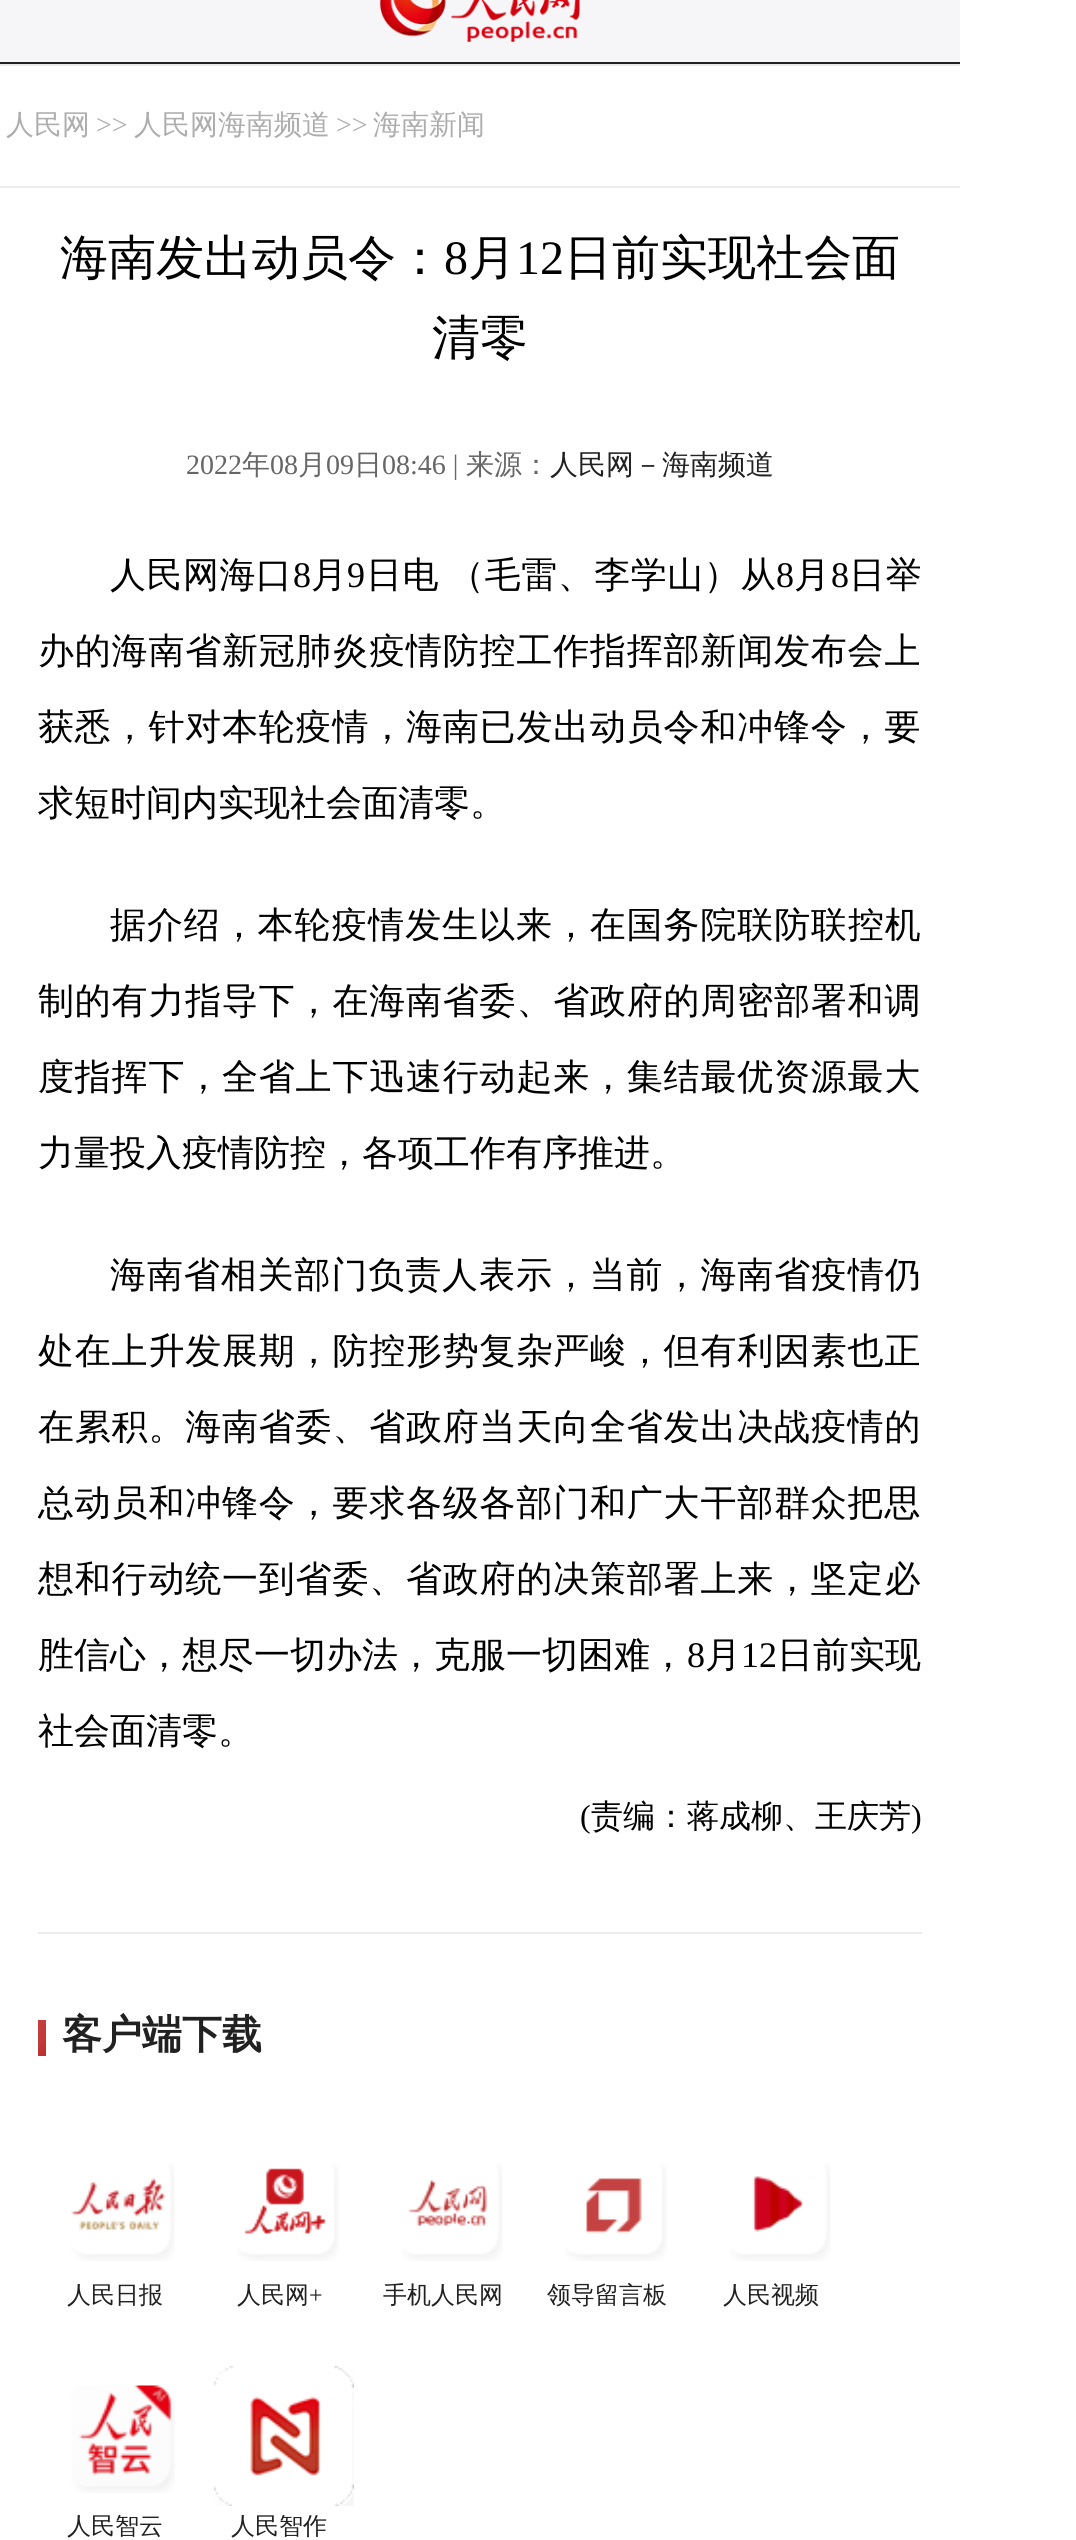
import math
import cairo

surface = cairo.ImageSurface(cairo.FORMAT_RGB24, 1076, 2540)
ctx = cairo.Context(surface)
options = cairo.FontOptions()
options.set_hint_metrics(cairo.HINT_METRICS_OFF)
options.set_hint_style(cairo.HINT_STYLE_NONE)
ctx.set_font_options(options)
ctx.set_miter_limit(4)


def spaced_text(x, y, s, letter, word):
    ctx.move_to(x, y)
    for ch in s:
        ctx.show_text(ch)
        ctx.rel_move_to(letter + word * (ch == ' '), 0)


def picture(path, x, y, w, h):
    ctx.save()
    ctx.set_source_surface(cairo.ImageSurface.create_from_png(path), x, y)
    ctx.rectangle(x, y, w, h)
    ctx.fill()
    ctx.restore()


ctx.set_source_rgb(1, 1, 1)
ctx.paint()
ctx.set_source_rgb(0.961, 0.961, 0.969)
ctx.rectangle(0, 0, 960, 62)
ctx.fill()
ctx.set_source_rgb(0.129, 0.129, 0.129)
ctx.rectangle(0, 62, 960, 2)
ctx.fill()
picture("img1.png", 380, 0, 200, 42)
ctx.set_source_rgb(0.914, 0.914, 0.914)
ctx.rectangle(0, 64, 960, 2)
ctx.fill()
ctx.set_source_rgb(0.925, 0.925, 0.925)
ctx.rectangle(0, 186, 960, 2)
ctx.fill()
ctx.select_font_face("WenQuanYi Zen Hei Medium")
ctx.set_font_size(28)
ctx.set_source_rgb(0.678, 0.678, 0.678)
ctx.move_to(6, 134)
ctx.show_text("人民网")
ctx.select_font_face("Liberation Serif")
ctx.move_to(96, 134)
ctx.show_text(">>")
ctx.select_font_face("WenQuanYi Zen Hei Medium")
ctx.move_to(134, 134)
ctx.show_text("人民网海南频道")
ctx.select_font_face("Liberation Serif")
ctx.move_to(336, 134)
ctx.show_text(">>")
ctx.select_font_face("WenQuanYi Zen Hei Medium")
ctx.move_to(373, 134)
ctx.show_text("海南新闻")
ctx.set_font_size(48)
ctx.set_source_rgb(0, 0, 0)
ctx.move_to(60, 274)
ctx.show_text("海南发出动员令：")
ctx.select_font_face("Liberation Serif")
ctx.move_to(444, 274)
ctx.show_text("8")
ctx.select_font_face("WenQuanYi Zen Hei Medium")
ctx.move_to(468, 274)
ctx.show_text("月")
ctx.select_font_face("Liberation Serif")
ctx.move_to(516, 274)
ctx.show_text("12")
ctx.select_font_face("WenQuanYi Zen Hei Medium")
ctx.move_to(564, 274)
ctx.show_text("日前实现社会面")
ctx.move_to(432, 354)
ctx.show_text("清零")
ctx.select_font_face("Liberation Serif")
ctx.set_font_size(28)
ctx.set_source_rgb(0.4, 0.4, 0.4)
ctx.move_to(186, 474)
ctx.show_text("2022")
ctx.select_font_face("WenQuanYi Zen Hei Medium")
ctx.move_to(242, 474)
ctx.show_text("年")
ctx.select_font_face("Liberation Serif")
ctx.move_to(270, 474)
ctx.show_text("08")
ctx.select_font_face("WenQuanYi Zen Hei Medium")
ctx.move_to(298, 474)
ctx.show_text("月")
ctx.select_font_face("Liberation Serif")
ctx.move_to(326, 474)
ctx.show_text("09")
ctx.select_font_face("WenQuanYi Zen Hei Medium")
ctx.move_to(354, 474)
ctx.show_text("日")
ctx.select_font_face("Liberation Serif")
ctx.move_to(382, 474)
ctx.show_text("08:46 |")
ctx.select_font_face("WenQuanYi Zen Hei Medium")
ctx.move_to(466, 474)
ctx.show_text("来源：")
ctx.set_source_rgb(0.129, 0.129, 0.129)
ctx.move_to(550, 474)
ctx.show_text("人民网－海南频道")
ctx.set_font_size(36)
ctx.set_source_rgb(0, 0, 0)
spaced_text(110, 587, "人民网海口", 0.5, 0)
ctx.select_font_face("Liberation Serif")
spaced_text(293, 587, "8", 0.5, 0)
ctx.select_font_face("WenQuanYi Zen Hei Medium")
spaced_text(311, 587, "月", 0.5, 0)
ctx.select_font_face("Liberation Serif")
spaced_text(347, 587, "9", 0.5, 0)
ctx.select_font_face("WenQuanYi Zen Hei Medium")
spaced_text(366, 587, "日电 （毛雷、李学山）从", 0.5, -2)
ctx.select_font_face("Liberation Serif")
spaced_text(776, 587, "8", 0.5, 0)
ctx.select_font_face("WenQuanYi Zen Hei Medium")
spaced_text(794, 587, "月", 0.5, 0)
ctx.select_font_face("Liberation Serif")
spaced_text(831, 587, "8", 0.5, 0)
ctx.select_font_face("WenQuanYi Zen Hei Medium")
spaced_text(849, 587, "日举", 0.5, 0)
spaced_text(38, 663, "办的海南省新冠肺炎疫情防控工作指挥部新闻发布会上", 0.8, 0)
spaced_text(38, 739, "获悉，针对本轮疫情，海南已发出动员令和冲锋令，要", 0.8, 0)
ctx.move_to(38, 815)
ctx.show_text("求短时间内实现社会面清零。")
spaced_text(110, 937, "据介绍，本轮疫情发生以来，在国务院联防联控机", 0.9, 0)
spaced_text(38, 1013, "制的有力指导下，在海南省委、省政府的周密部署和调", 0.8, 0)
spaced_text(38, 1089, "度指挥下，全省上下迅速行动起来，集结最优资源最大", 0.8, 0)
ctx.move_to(38, 1165)
ctx.show_text("力量投入疫情防控，各项工作有序推进。")
spaced_text(110, 1287, "海南省相关部门负责人表示，当前，海南省疫情仍", 0.9, 0)
spaced_text(38, 1363, "处在上升发展期，防控形势复杂严峻，但有利因素也正", 0.8, 0)
spaced_text(38, 1439, "在累积。海南省委、省政府当天向全省发出决战疫情的", 0.8, 0)
spaced_text(38, 1515, "总动员和冲锋令，要求各级各部门和广大干部群众把思", 0.8, 0)
spaced_text(38, 1591, "想和行动统一到省委、省政府的决策部署上来，坚定必", 0.8, 0)
ctx.move_to(38, 1667)
ctx.show_text("胜信心，想尽一切办法，克服一切困难，")
ctx.select_font_face("Liberation Serif")
ctx.move_to(687, 1667)
ctx.show_text("8")
ctx.select_font_face("WenQuanYi Zen Hei Medium")
ctx.move_to(705, 1667)
ctx.show_text("月")
ctx.select_font_face("Liberation Serif")
ctx.move_to(741, 1667)
ctx.show_text("12")
ctx.select_font_face("WenQuanYi Zen Hei Medium")
ctx.move_to(777, 1667)
ctx.show_text("日前实现")
ctx.move_to(38, 1743)
ctx.show_text("社会面清零。")
ctx.select_font_face("Liberation Serif")
ctx.set_font_size(32)
ctx.move_to(580, 1827)
ctx.show_text("(")
ctx.select_font_face("WenQuanYi Zen Hei Medium")
ctx.move_to(591, 1827)
ctx.show_text("责编：蒋成柳、王庆芳")
ctx.select_font_face("Liberation Serif")
ctx.move_to(911, 1827)
ctx.show_text(")")
ctx.set_source_rgb(0.925, 0.925, 0.925)
ctx.rectangle(38, 1932, 884, 2)
ctx.fill()
gradient = cairo.LinearGradient(31, 2027, 53, 2049)
gradient.add_color_stop_rgba(0, 0.773, 0.239, 0.239, 1)
gradient.add_color_stop_rgba(0.49, 0.769, 0.227, 0.227, 1)
gradient.add_color_stop_rgba(1, 0.733, 0.176, 0.176, 1)
ctx.set_source(gradient)
ctx.rectangle(38, 2020, 8, 36)
ctx.fill()
ctx.select_font_face("WenQuanYi Zen Hei", cairo.FONT_SLANT_NORMAL, cairo.FONT_WEIGHT_BOLD)
ctx.set_font_size(40)
ctx.set_source_rgb(0.129, 0.129, 0.129)
ctx.move_to(62, 2048)
ctx.show_text("客户端下载")
picture("img2.png", 71, 2163, 104, 98)
ctx.select_font_face("WenQuanYi Zen Hei Medium")
ctx.set_font_size(24)
ctx.move_to(67, 2303)
ctx.show_text("人民日报")
picture("img3.png", 238, 2163, 101, 98)
ctx.move_to(237, 2303)
ctx.show_text("人民网")
ctx.select_font_face("Liberation Serif")
ctx.move_to(309, 2303)
ctx.show_text("+")
picture("img4.png", 402, 2163, 101, 98)
ctx.select_font_face("WenQuanYi Zen Hei Medium")
ctx.move_to(383, 2303)
ctx.show_text("手机人民网")
picture("img5.png", 566, 2163, 101, 98)
ctx.move_to(547, 2303)
ctx.show_text("领导留言板")
picture("img6.png", 730, 2163, 101, 98)
ctx.move_to(723, 2303)
ctx.show_text("人民视频")
picture("img7.png", 71, 2385, 104, 108)
ctx.move_to(67, 2534)
ctx.show_text("人民智云")
picture("img8.png", 214, 2366, 140, 140)
ctx.move_to(231, 2534)
ctx.show_text("人民智作")
surface.write_to_png("page.png")
